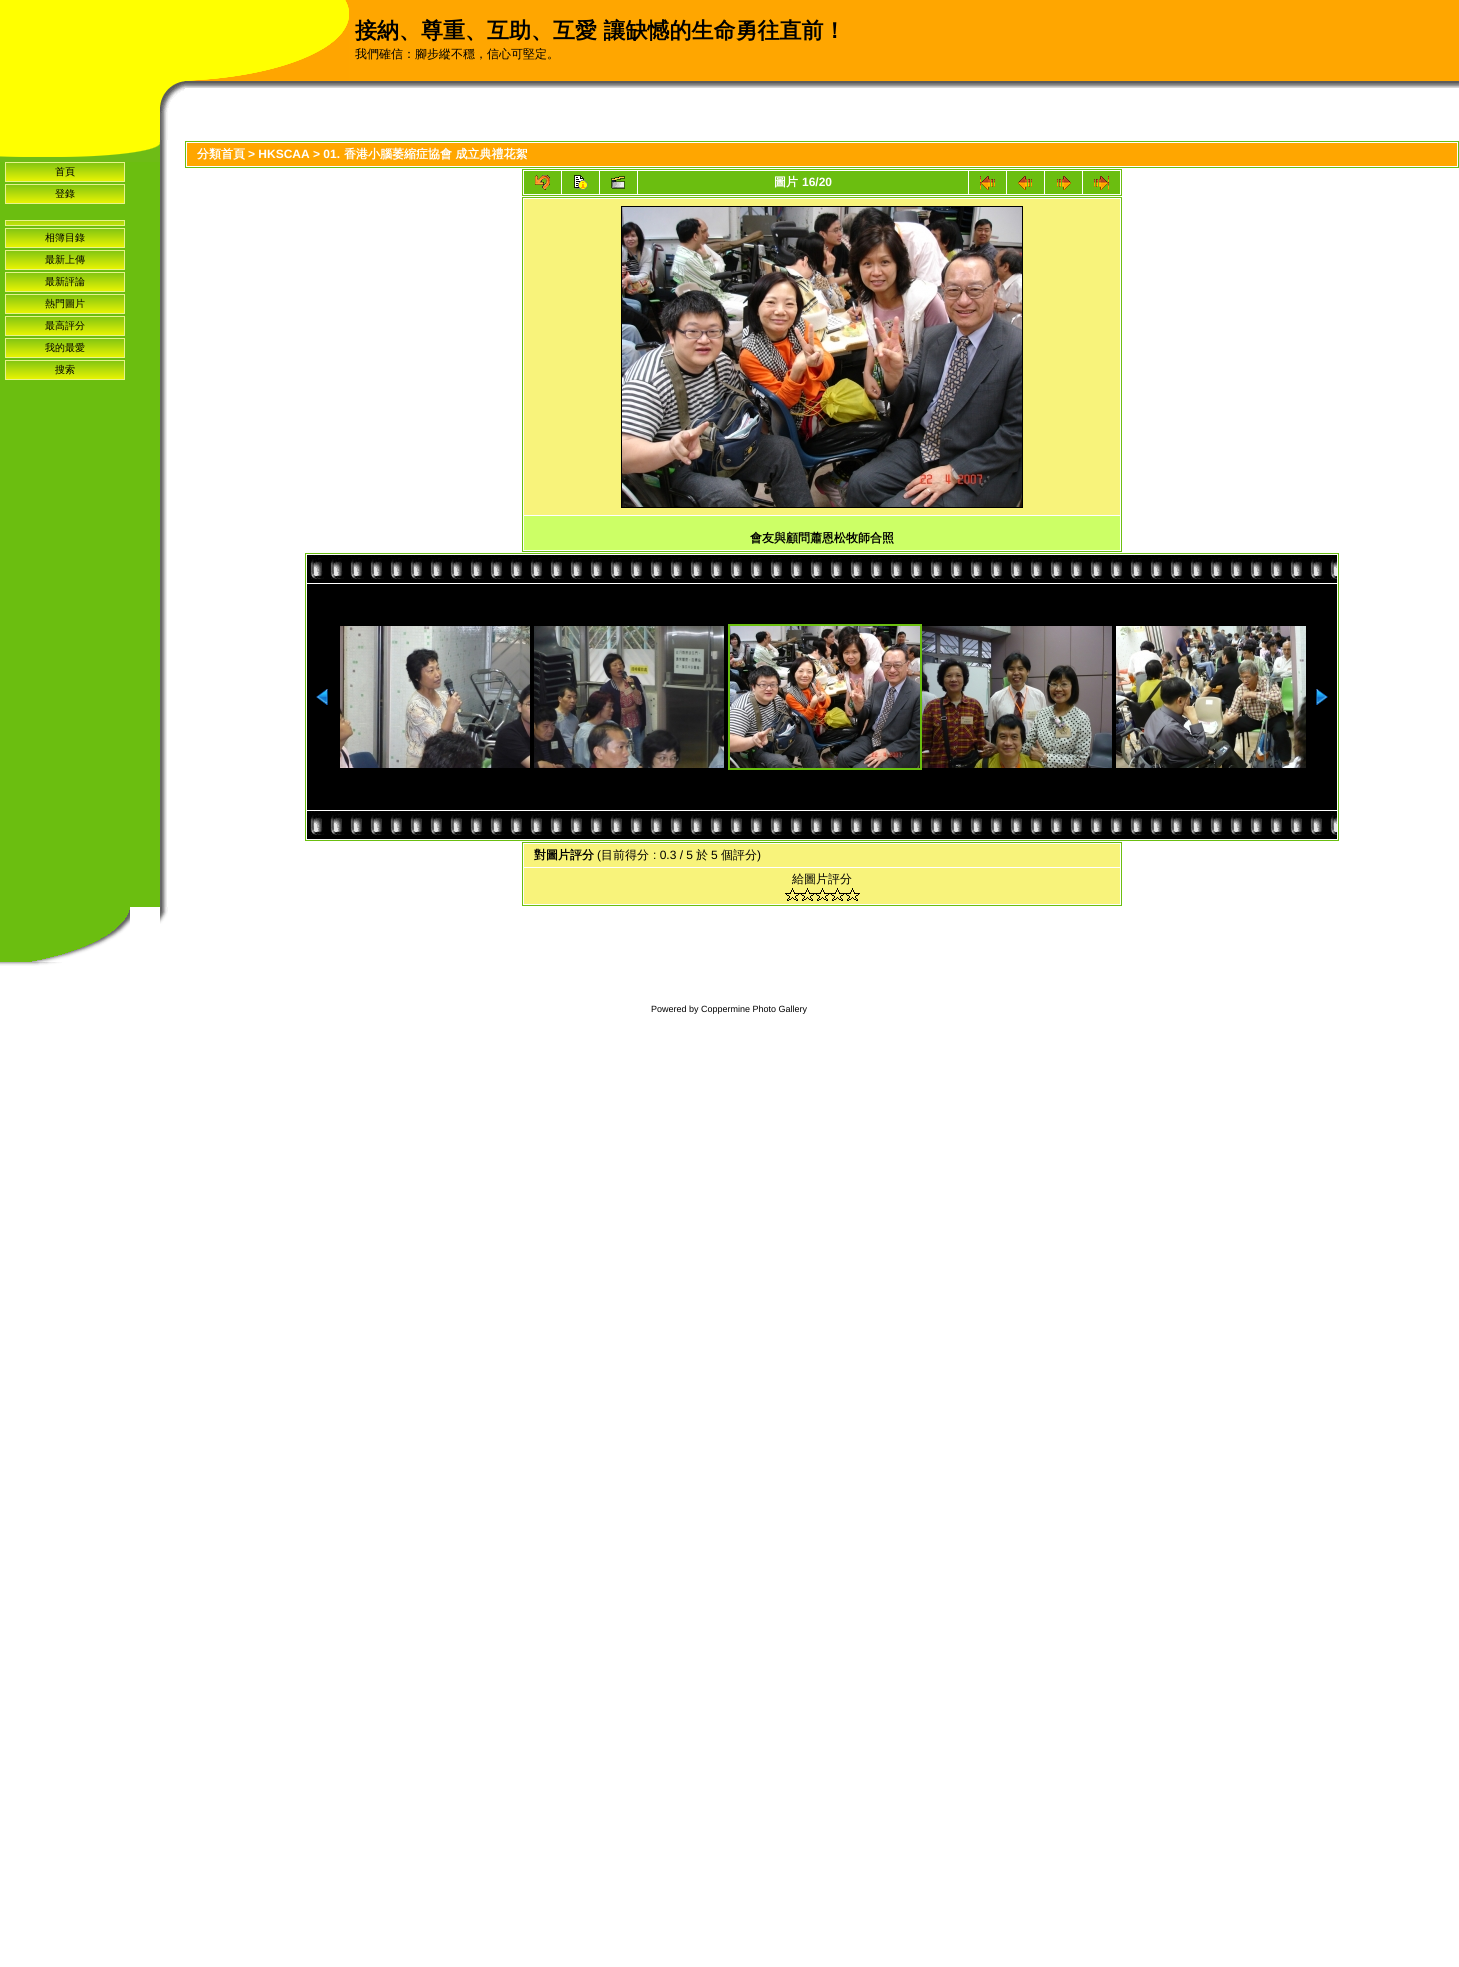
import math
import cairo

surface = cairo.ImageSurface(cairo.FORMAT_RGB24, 1459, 1967)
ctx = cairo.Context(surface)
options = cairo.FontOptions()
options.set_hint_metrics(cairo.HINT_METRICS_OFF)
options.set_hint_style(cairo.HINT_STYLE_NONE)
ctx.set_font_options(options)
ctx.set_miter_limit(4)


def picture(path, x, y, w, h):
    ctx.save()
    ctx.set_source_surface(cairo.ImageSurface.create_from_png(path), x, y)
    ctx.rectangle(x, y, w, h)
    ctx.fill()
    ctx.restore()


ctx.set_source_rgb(1, 1, 1)
ctx.paint()
ctx.set_source_rgb(1, 1, 0)
ctx.rectangle(0, 0, 185, 81)
ctx.fill()
ctx.set_source_rgb(1, 0.651, 0)
ctx.rectangle(349, 0, 1110, 81)
ctx.fill()
picture("img1.png", 185, 0, 164, 81)
ctx.select_font_face("WenQuanYi Zen Hei", cairo.FONT_SLANT_NORMAL, cairo.FONT_WEIGHT_BOLD)
ctx.set_font_size(22)
ctx.set_source_rgb(0, 0, 0)
ctx.move_to(355, 38)
ctx.show_text("接納、尊重、互助、互愛 讓缺憾的生命勇往直前！")
ctx.select_font_face("WenQuanYi Zen Hei Medium")
ctx.set_font_size(12)
ctx.move_to(355, 58)
ctx.show_text("我們確信：腳步縱不穩，信心可堅定。")
ctx.set_source_rgb(1, 1, 0)
ctx.rectangle(0, 81, 160, 59)
ctx.fill()
picture("img2.png", 160, 81, 25, 45)
picture("img3.png", 185, 81, 1274, 7)
picture("img4.png", 160, 126, 8, 14)
ctx.set_source_rgb(0.42, 0.745, 0.063)
ctx.rectangle(0, 162, 160, 745)
ctx.fill()
picture("img5.png", 0, 140, 24, 22)
picture("img6.png", 24, 140, 38, 22)
picture("img7.png", 62, 140, 98, 22)
picture("img8.png", 6, 163, 118, 18)
ctx.rectangle(5.5, 162.5, 119, 19)
ctx.set_source_rgb(0.906, 0.953, 0.549)
ctx.set_line_width(1)
ctx.stroke()
ctx.set_font_size(10)
ctx.set_source_rgb(0, 0, 0)
ctx.move_to(55, 175)
ctx.show_text("首頁")
picture("img8.png", 6, 185, 118, 18)
ctx.rectangle(5.5, 184.5, 119, 19)
ctx.set_source_rgb(0.906, 0.953, 0.549)
ctx.stroke()
ctx.set_source_rgb(0, 0, 0)
ctx.move_to(55, 197)
ctx.show_text("登錄")
picture("img9.png", 6, 221, 118, 4)
ctx.rectangle(5.5, 220.5, 119, 5)
ctx.set_source_rgb(0.906, 0.953, 0.549)
ctx.stroke()
picture("img8.png", 6, 229, 118, 18)
ctx.rectangle(5.5, 228.5, 119, 19)
ctx.stroke()
ctx.set_source_rgb(0, 0, 0)
ctx.move_to(45, 241)
ctx.show_text("相簿目錄")
picture("img8.png", 6, 251, 118, 18)
ctx.rectangle(5.5, 250.5, 119, 19)
ctx.set_source_rgb(0.906, 0.953, 0.549)
ctx.stroke()
ctx.set_source_rgb(0, 0, 0)
ctx.move_to(45, 263)
ctx.show_text("最新上傳")
picture("img8.png", 6, 273, 118, 18)
ctx.rectangle(5.5, 272.5, 119, 19)
ctx.set_source_rgb(0.906, 0.953, 0.549)
ctx.stroke()
ctx.set_source_rgb(0, 0, 0)
ctx.move_to(45, 285)
ctx.show_text("最新評論")
picture("img8.png", 6, 295, 118, 18)
ctx.rectangle(5.5, 294.5, 119, 19)
ctx.set_source_rgb(0.906, 0.953, 0.549)
ctx.stroke()
ctx.set_source_rgb(0, 0, 0)
ctx.move_to(45, 307)
ctx.show_text("熱門圖片")
picture("img8.png", 6, 317, 118, 18)
ctx.rectangle(5.5, 316.5, 119, 19)
ctx.set_source_rgb(0.906, 0.953, 0.549)
ctx.stroke()
ctx.set_source_rgb(0, 0, 0)
ctx.move_to(45, 329)
ctx.show_text("最高評分")
picture("img8.png", 6, 339, 118, 18)
ctx.rectangle(5.5, 338.5, 119, 19)
ctx.set_source_rgb(0.906, 0.953, 0.549)
ctx.stroke()
ctx.set_source_rgb(0, 0, 0)
ctx.move_to(45, 351)
ctx.show_text("我的最愛")
picture("img8.png", 6, 361, 118, 18)
ctx.rectangle(5.5, 360.5, 119, 19)
ctx.set_source_rgb(0.906, 0.953, 0.549)
ctx.stroke()
ctx.set_source_rgb(0, 0, 0)
ctx.move_to(55, 373)
ctx.show_text("搜索")
picture("img10.png", 160, 140, 7, 767)
ctx.rectangle(185.5, 141.5, 1273, 26)
ctx.set_source_rgb(0.42, 0.745, 0.063)
ctx.stroke()
ctx.set_source_rgb(1, 0.651, 0)
ctx.rectangle(187, 143, 1270, 23)
ctx.fill()
ctx.select_font_face("WenQuanYi Zen Hei", cairo.FONT_SLANT_NORMAL, cairo.FONT_WEIGHT_BOLD)
ctx.set_font_size(12)
ctx.set_source_rgb(1, 1, 1)
ctx.move_to(197, 158)
ctx.show_text("分類首頁")
ctx.select_font_face("Liberation Sans", cairo.FONT_SLANT_NORMAL, cairo.FONT_WEIGHT_BOLD)
ctx.move_to(248, 158)
ctx.show_text("> HKSCAA > 01.")
ctx.select_font_face("WenQuanYi Zen Hei", cairo.FONT_SLANT_NORMAL, cairo.FONT_WEIGHT_BOLD)
ctx.move_to(344, 158)
ctx.show_text("香港小腦萎縮症協會 成立典禮花絮")
ctx.rectangle(522.5, 169.5, 599, 26)
ctx.set_source_rgb(0.42, 0.745, 0.063)
ctx.stroke()
ctx.rectangle(524, 171, 37, 23)
ctx.fill()
picture("img11.png", 535, 175, 15, 15)
ctx.rectangle(562, 171, 37, 23)
ctx.fill()
picture("img12.png", 574, 175, 14, 15)
ctx.rectangle(600, 171, 37, 23)
ctx.fill()
picture("img13.png", 611, 176, 14, 13)
ctx.rectangle(638, 171, 330, 23)
ctx.fill()
ctx.set_source_rgb(1, 1, 1)
ctx.move_to(774, 186)
ctx.show_text("圖片")
ctx.select_font_face("Liberation Sans", cairo.FONT_SLANT_NORMAL, cairo.FONT_WEIGHT_BOLD)
ctx.move_to(802, 186)
ctx.show_text("16/20")
ctx.set_source_rgb(0.42, 0.745, 0.063)
ctx.rectangle(969, 171, 37, 23)
ctx.fill()
picture("img14.png", 980, 176, 15, 14)
ctx.rectangle(1007, 171, 37, 23)
ctx.fill()
picture("img15.png", 1018, 176, 14, 14)
ctx.rectangle(1045, 171, 37, 23)
ctx.fill()
picture("img16.png", 1057, 176, 14, 14)
ctx.rectangle(1083, 171, 37, 23)
ctx.fill()
picture("img17.png", 1094, 176, 15, 14)
ctx.rectangle(522.5, 197.5, 599, 354)
ctx.stroke()
ctx.set_source_rgb(0.969, 0.953, 0.482)
ctx.rectangle(524, 199, 596, 316)
ctx.fill()
ctx.rectangle(621.5, 206.5, 401, 301)
ctx.set_source_rgb(0, 0, 0)
ctx.stroke()
picture("img18.png", 622, 207, 400, 300)
ctx.set_source_rgb(0.8, 1, 0.4)
ctx.rectangle(524, 516, 596, 34)
ctx.fill()
ctx.select_font_face("WenQuanYi Zen Hei", cairo.FONT_SLANT_NORMAL, cairo.FONT_WEIGHT_BOLD)
ctx.set_source_rgb(0, 0, 0)
ctx.move_to(750, 542)
ctx.show_text("會友與顧問蕭恩松牧師合照")
ctx.rectangle(305.5, 553.5, 1033, 287)
ctx.set_source_rgb(0.42, 0.745, 0.063)
ctx.stroke()
ctx.set_source_rgb(0, 0, 0)
ctx.rectangle(307, 555, 1030, 28)
ctx.fill()
picture("img19.png", 310, 555, 1027, 24)
ctx.rectangle(307, 584, 1030, 226)
ctx.fill()
picture("img20.png", 316, 689, 12, 16)
picture("img21.png", 340, 626, 190, 142)
picture("img22.png", 534, 626, 190, 142)
ctx.rectangle(729, 625, 192, 144)
ctx.set_source_rgb(0.42, 0.745, 0.063)
ctx.set_line_width(2)
ctx.stroke()
picture("img23.png", 730, 626, 190, 142)
picture("img24.png", 922, 626, 190, 142)
picture("img25.png", 1116, 626, 190, 142)
picture("img26.png", 1316, 689, 12, 16)
ctx.set_source_rgb(0, 0, 0)
ctx.rectangle(307, 811, 1030, 28)
ctx.fill()
picture("img19.png", 310, 811, 1027, 24)
ctx.rectangle(522.5, 842.5, 599, 63)
ctx.set_source_rgb(0.42, 0.745, 0.063)
ctx.set_line_width(1)
ctx.stroke()
ctx.set_source_rgb(0.969, 0.953, 0.482)
ctx.rectangle(524, 844, 596, 23)
ctx.fill()
ctx.set_source_rgb(0, 0, 0)
ctx.move_to(534, 859)
ctx.show_text("對圖片評分")
ctx.select_font_face("Liberation Sans")
ctx.move_to(597, 859)
ctx.show_text("(")
ctx.select_font_face("WenQuanYi Zen Hei Medium")
ctx.move_to(601, 859)
ctx.show_text("目前得分")
ctx.select_font_face("Liberation Sans")
ctx.move_to(653, 859)
ctx.show_text(": 0.3 / 5")
ctx.select_font_face("WenQuanYi Zen Hei Medium")
ctx.move_to(696, 859)
ctx.show_text("於")
ctx.select_font_face("Liberation Sans")
ctx.move_to(711, 859)
ctx.show_text("5")
ctx.select_font_face("WenQuanYi Zen Hei Medium")
ctx.move_to(721, 859)
ctx.show_text("個評分")
ctx.select_font_face("Liberation Sans")
ctx.move_to(757, 859)
ctx.show_text(")")
ctx.set_source_rgb(0.969, 0.953, 0.482)
ctx.rectangle(524, 868, 596, 36)
ctx.fill()
ctx.select_font_face("WenQuanYi Zen Hei Medium")
ctx.set_source_rgb(0, 0, 0)
ctx.move_to(792, 883)
ctx.show_text("給圖片評分")
picture("img27.png", 785, 888, 15, 13)
picture("img27.png", 800, 888, 15, 13)
picture("img27.png", 815, 888, 15, 13)
picture("img27.png", 830, 888, 15, 13)
picture("img27.png", 845, 888, 15, 13)
ctx.set_source_rgb(0.42, 0.745, 0.063)
ctx.rectangle(0, 907, 4, 55)
ctx.fill()
picture("img28.png", 4, 907, 126, 55)
picture("img29.png", 160, 907, 8, 17)
picture("img30.png", 0, 962, 34, 4)
picture("img31.png", 34, 962, 28, 4)
ctx.select_font_face("Liberation Sans")
ctx.set_font_size(9)
ctx.set_source_rgb(0, 0, 0)
ctx.move_to(651, 1012)
ctx.show_text("Powered by Coppermine Photo Gallery")
surface.write_to_png("page.png")
